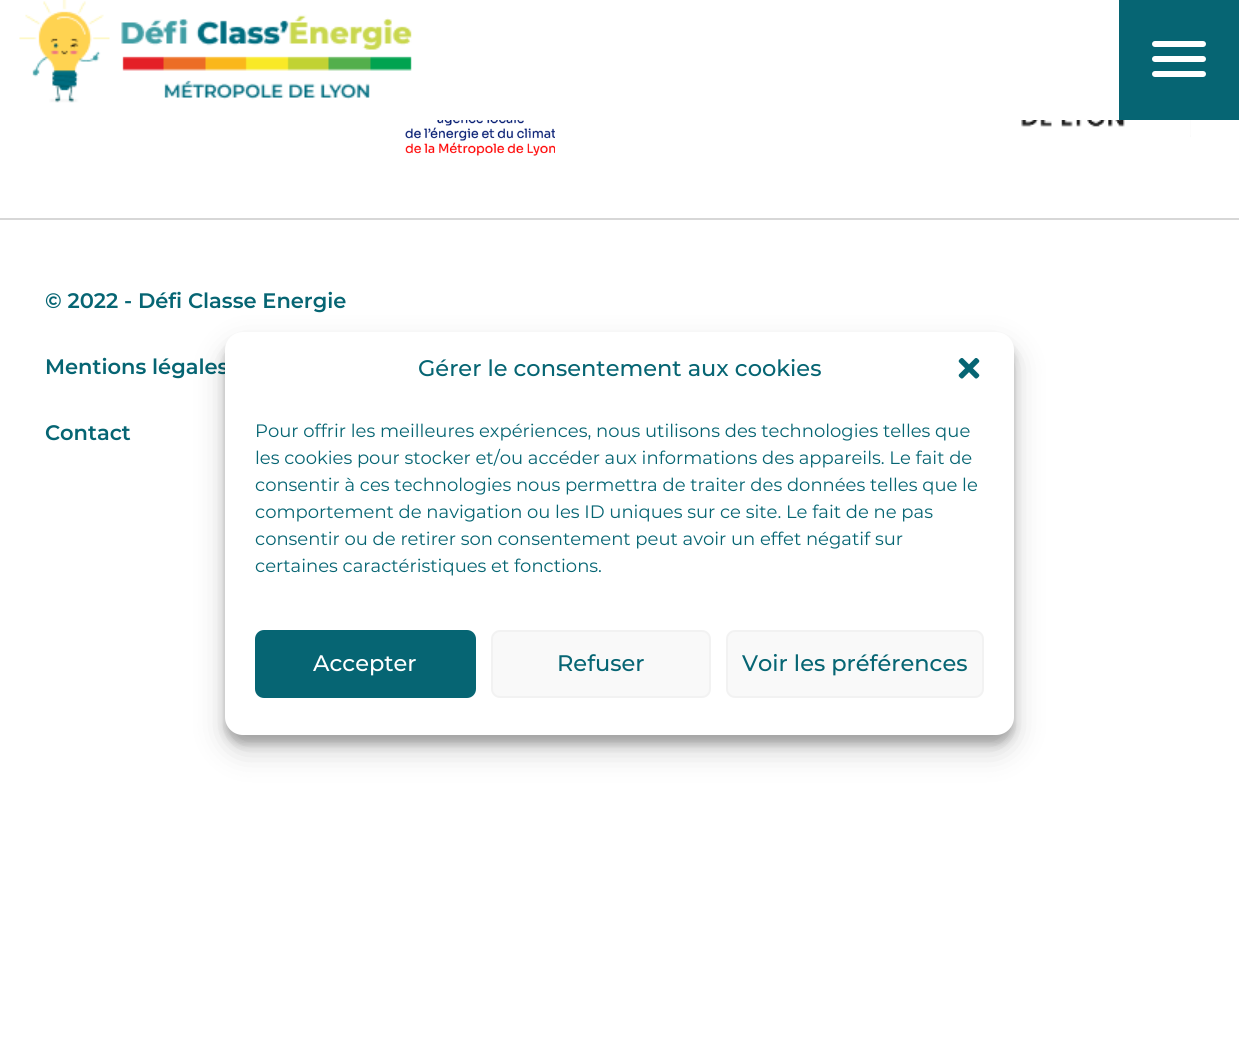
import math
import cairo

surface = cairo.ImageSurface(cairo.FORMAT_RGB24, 1239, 1064)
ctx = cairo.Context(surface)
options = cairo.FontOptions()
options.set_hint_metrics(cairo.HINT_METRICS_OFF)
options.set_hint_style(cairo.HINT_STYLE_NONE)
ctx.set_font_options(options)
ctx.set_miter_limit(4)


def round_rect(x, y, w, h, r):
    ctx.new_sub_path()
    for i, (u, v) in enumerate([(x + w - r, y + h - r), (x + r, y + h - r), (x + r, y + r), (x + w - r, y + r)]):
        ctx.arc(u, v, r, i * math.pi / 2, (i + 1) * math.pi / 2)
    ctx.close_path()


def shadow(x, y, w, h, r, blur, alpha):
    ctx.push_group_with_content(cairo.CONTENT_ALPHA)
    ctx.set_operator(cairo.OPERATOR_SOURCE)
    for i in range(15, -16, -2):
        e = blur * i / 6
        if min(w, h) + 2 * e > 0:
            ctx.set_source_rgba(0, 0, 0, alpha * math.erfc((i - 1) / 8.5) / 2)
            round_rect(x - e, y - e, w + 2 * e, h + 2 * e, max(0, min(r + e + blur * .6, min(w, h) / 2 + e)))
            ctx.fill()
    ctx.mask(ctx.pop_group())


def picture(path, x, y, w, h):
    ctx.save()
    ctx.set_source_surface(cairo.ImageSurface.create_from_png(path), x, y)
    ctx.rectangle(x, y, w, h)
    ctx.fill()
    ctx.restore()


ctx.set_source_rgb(1, 1, 1)
ctx.paint()
picture("img1.png", 19, 0, 393, 103)
ctx.set_source_rgb(0.024, 0.396, 0.451)
ctx.rectangle(1119, 0, 120, 120)
ctx.fill()
ctx.set_source_rgb(1, 1, 1)
round_rect(1152, 41, 54, 6, 3)
ctx.fill()
round_rect(1152, 56, 54, 6, 3)
ctx.fill()
round_rect(1152, 71, 54, 6, 3)
ctx.fill()
picture("img2.png", 405, 120, 150, 36)
picture("img3.png", 1019, 120, 172, 17)
ctx.set_source_rgb(0.843, 0.843, 0.843)
ctx.rectangle(0, 218, 1239, 2)
ctx.fill()
ctx.select_font_face("Montserrat SemiBold")
ctx.set_font_size(21)
ctx.set_source_rgb(0.024, 0.396, 0.451)
ctx.move_to(45, 308)
ctx.show_text("© 2022 - Défi Classe Energie")
ctx.move_to(45, 374)
ctx.show_text("Mentions légales")
ctx.move_to(45, 440)
ctx.show_text("Contact")
ctx.set_source_rgb(0, 0, 0)
shadow(225, 341, 789, 403, 18, 4.5, 0.23)
shadow(225, 347, 789, 403, 18, 15, 0.19)
ctx.set_source_rgb(1, 1, 1)
round_rect(225, 332, 789, 403, 18)
ctx.fill()
ctx.select_font_face("Montserrat Medium")
ctx.set_font_size(22.5)
ctx.set_source_rgb(0.024, 0.396, 0.451)
ctx.move_to(418, 376)
ctx.show_text("Gérer le consentement aux cookies")
picture("img4.png", 958, 358, 22, 21)
ctx.select_font_face("Montserrat")
ctx.set_font_size(18)
ctx.move_to(255, 437)
ctx.show_text("Pour offrir les meilleures expériences, nous utilisons des technologies telles que")
ctx.move_to(255, 464)
ctx.show_text("les cookies pour stocker et/ou accéder aux informations des appareils. Le fait de")
ctx.move_to(255, 491)
ctx.show_text("consentir à ces technologies nous permettra de traiter des données telles que le")
ctx.move_to(255, 518)
ctx.show_text("comportement de navigation ou les ID uniques sur ce site. Le fait de ne pas")
ctx.move_to(255, 545)
ctx.show_text("consentir ou de retirer son consentement peut avoir un effet négatif sur")
ctx.move_to(255, 572)
ctx.show_text("certaines caractéristiques et fonctions.")
round_rect(256, 631, 219, 66, 8)
ctx.fill_preserve()
ctx.stroke()
ctx.select_font_face("Montserrat Medium")
ctx.set_font_size(22.5)
ctx.set_source_rgb(1, 1, 1)
ctx.move_to(313, 671)
ctx.show_text("Accepter")
ctx.set_source_rgb(0.976, 0.976, 0.976)
round_rect(492, 631, 218, 66, 8)
ctx.fill_preserve()
ctx.set_source_rgb(0.949, 0.949, 0.949)
ctx.stroke()
ctx.set_source_rgb(0.024, 0.396, 0.451)
ctx.move_to(557, 671)
ctx.show_text("Refuser")
ctx.set_source_rgb(0.976, 0.976, 0.976)
round_rect(727, 631, 256, 66, 8)
ctx.fill_preserve()
ctx.set_source_rgb(0.949, 0.949, 0.949)
ctx.stroke()
ctx.set_source_rgb(0.024, 0.396, 0.451)
ctx.move_to(742, 671)
ctx.show_text("Voir les préférences")
surface.write_to_png("page.png")
